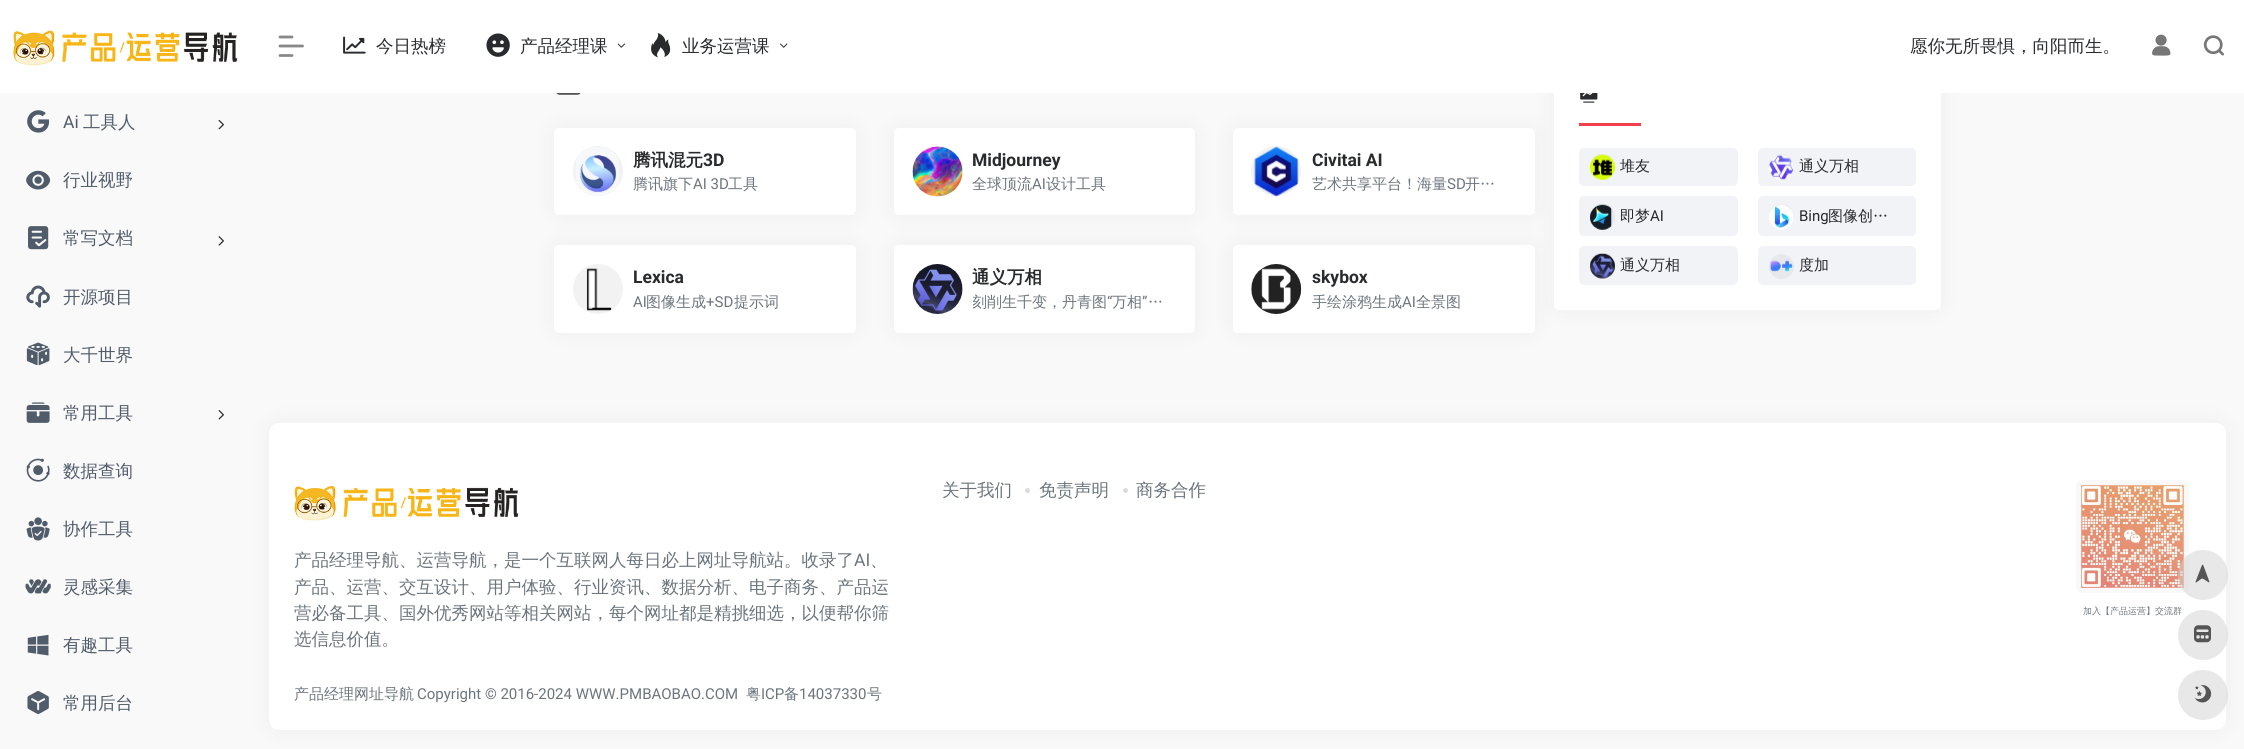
import math
import cairo

surface = cairo.ImageSurface(cairo.FORMAT_RGB24, 2244, 749)
ctx = cairo.Context(surface)
options = cairo.FontOptions()
options.set_hint_metrics(cairo.HINT_METRICS_OFF)
options.set_hint_style(cairo.HINT_STYLE_NONE)
ctx.set_font_options(options)
ctx.set_miter_limit(4)


def round_rect(x, y, w, h, r):
    ctx.new_sub_path()
    for i, (u, v) in enumerate([(x + w - r, y + h - r), (x + r, y + h - r), (x + r, y + r), (x + w - r, y + r)]):
        ctx.arc(u, v, r, i * math.pi / 2, (i + 1) * math.pi / 2)
    ctx.close_path()


def shadow(x, y, w, h, r, blur, alpha):
    ctx.push_group_with_content(cairo.CONTENT_ALPHA)
    ctx.set_operator(cairo.OPERATOR_SOURCE)
    for i in range(15, -16, -2):
        e = blur * i / 6
        if min(w, h) + 2 * e > 0:
            ctx.set_source_rgba(0, 0, 0, alpha * math.erfc((i - 1) / 8.5) / 2)
            round_rect(x - e, y - e, w + 2 * e, h + 2 * e, max(0, min(r + e + blur * .6, min(w, h) / 2 + e)))
            ctx.fill()
    ctx.mask(ctx.pop_group())


def picture(path, x, y, w, h):
    ctx.save()
    ctx.set_source_surface(cairo.ImageSurface.create_from_png(path), x, y)
    ctx.rectangle(x, y, w, h)
    ctx.fill()
    ctx.restore()


ctx.set_source_rgb(0.976, 0.976, 0.976)
ctx.paint()
ctx.set_source_rgb(0.62, 0.62, 0.62)
shadow(1239, 134, 290, 75, 0, 12.5, 0.2)
ctx.set_source_rgb(1, 1, 1)
round_rect(1233, 128, 302, 87, 5)
ctx.fill()
ctx.set_source_rgb(0.62, 0.62, 0.62)
shadow(1239, 251, 290, 75, 0, 12.5, 0.2)
ctx.set_source_rgb(1, 1, 1)
round_rect(1233, 245, 302, 88, 5)
ctx.fill()
ctx.set_source_rgb(0.62, 0.62, 0.62)
shadow(1560, 75, 375, 229, 0, 12.5, 0.2)
ctx.set_source_rgb(1, 1, 1)
round_rect(1554, 69, 387, 241, 5)
ctx.fill()
ctx.rectangle(0, 0, 2244, 93)
ctx.fill()
picture("img1.png", 13, 30, 225, 36)
picture("img2.png", 27, 110, 23, 23)
ctx.select_font_face("Roboto")
ctx.set_font_size(17.5)
ctx.set_source_rgb(0.318, 0.361, 0.42)
ctx.move_to(63, 128)
ctx.show_text("Ai")
ctx.select_font_face("WenQuanYi Zen Hei Medium")
ctx.move_to(83, 128)
ctx.show_text("工具人")
picture("img3.png", 218, 119, 6, 11)
picture("img4.png", 26, 170, 25, 20)
ctx.move_to(63, 186)
ctx.show_text("行业视野")
picture("img5.png", 28, 226, 21, 24)
ctx.move_to(63, 244)
ctx.show_text("常写文档")
picture("img6.png", 218, 236, 6, 10)
picture("img7.png", 26, 285, 24, 23)
ctx.move_to(63, 303)
ctx.show_text("开源项目")
picture("img8.png", 26, 342, 24, 24)
ctx.move_to(63, 361)
ctx.show_text("大千世界")
picture("img9.png", 26, 402, 24, 21)
ctx.move_to(63, 419)
ctx.show_text("常用工具")
picture("img10.png", 218, 410, 6, 10)
picture("img11.png", 26, 458, 24, 24)
ctx.move_to(63, 477)
ctx.show_text("数据查询")
picture("img12.png", 26, 517, 24, 24)
ctx.move_to(63, 535)
ctx.show_text("协作工具")
picture("img13.png", 25, 579, 26, 15)
ctx.move_to(63, 593)
ctx.show_text("灵感采集")
picture("img14.png", 27, 634, 22, 22)
ctx.move_to(63, 651)
ctx.show_text("有趣工具")
picture("img15.png", 27, 691, 22, 24)
ctx.move_to(63, 709)
ctx.show_text("常用后台")
ctx.new_path()
ctx.move_to(280, 37)
ctx.line_to(292, 37)
ctx.move_to(280, 46)
ctx.line_to(302.5, 46)
ctx.move_to(280, 55.5)
ctx.line_to(292, 55.5)
ctx.set_source_rgb(0.533, 0.533, 0.533)
ctx.set_line_width(2.8)
ctx.set_line_cap(cairo.LINE_CAP_ROUND)
ctx.set_line_join(cairo.LINE_JOIN_ROUND)
ctx.stroke()
picture("img16.png", 343, 36, 23, 18)
ctx.set_source_rgb(0.157, 0.165, 0.176)
ctx.move_to(376, 52)
ctx.show_text("今日热榜")
picture("img17.png", 486, 33, 24, 24)
ctx.move_to(520, 52)
ctx.show_text("产品经理课")
picture("img18.png", 617, 43, 8, 5)
picture("img19.png", 651, 33, 20, 25)
ctx.move_to(682, 52)
ctx.show_text("业务运营课")
picture("img20.png", 780, 43, 8, 5)
ctx.move_to(1910, 52)
ctx.show_text("愿你无所畏惧，向阳而生。")
picture("img21.png", 2152, 34, 19, 22)
picture("img22.png", 2203, 35, 21, 21)
picture("img23.png", 556, 93, 25, 2)
ctx.set_source_rgb(0.62, 0.62, 0.62)
shadow(560, 134, 290, 75, 0, 12.5, 0.2)
ctx.set_source_rgb(1, 1, 1)
round_rect(554, 128, 302, 87, 5)
ctx.fill()
ctx.set_source_rgb(0.949, 0.949, 0.949)
ctx.arc(598, 171, 25, 0, 2 * math.pi)
ctx.fill()
picture("img24.png", 576, 147, 43, 49)
ctx.select_font_face("WenQuanYi Zen Hei", cairo.FONT_SLANT_NORMAL, cairo.FONT_WEIGHT_BOLD)
ctx.set_source_rgb(0.157, 0.165, 0.176)
ctx.move_to(633, 166)
ctx.show_text("腾讯混元")
ctx.select_font_face("Roboto", cairo.FONT_SLANT_NORMAL, cairo.FONT_WEIGHT_BOLD)
ctx.move_to(703, 166)
ctx.show_text("3D")
ctx.select_font_face("WenQuanYi Zen Hei Medium")
ctx.set_font_size(15)
ctx.set_source_rgb(0.424, 0.459, 0.49)
ctx.move_to(633, 189)
ctx.show_text("腾讯旗下")
ctx.select_font_face("Roboto")
ctx.move_to(693, 189)
ctx.show_text("AI 3D")
ctx.select_font_face("WenQuanYi Zen Hei Medium")
ctx.move_to(728, 189)
ctx.show_text("工具")
ctx.set_source_rgb(0.62, 0.62, 0.62)
shadow(900, 134, 289, 75, 0, 12.5, 0.2)
ctx.set_source_rgb(1, 1, 1)
round_rect(894, 128, 301, 87, 5)
ctx.fill()
ctx.set_source_rgb(0.949, 0.949, 0.949)
ctx.arc(938, 171, 25, 0, 2 * math.pi)
ctx.fill()
picture("img25.png", 912, 146, 51, 51)
ctx.select_font_face("Roboto", cairo.FONT_SLANT_NORMAL, cairo.FONT_WEIGHT_BOLD)
ctx.set_font_size(17.5)
ctx.set_source_rgb(0.157, 0.165, 0.176)
ctx.move_to(972, 166)
ctx.show_text("Midjourney")
ctx.select_font_face("WenQuanYi Zen Hei Medium")
ctx.set_font_size(15)
ctx.set_source_rgb(0.424, 0.459, 0.49)
ctx.move_to(972, 189)
ctx.show_text("全球顶流")
ctx.select_font_face("Roboto")
ctx.move_to(1032, 189)
ctx.show_text("AI")
ctx.select_font_face("WenQuanYi Zen Hei Medium")
ctx.move_to(1046, 189)
ctx.show_text("设计工具")
ctx.set_source_rgb(0.949, 0.949, 0.949)
ctx.new_path()
ctx.arc(1276, 171, 25, 0, 2 * math.pi)
ctx.fill()
picture("img26.png", 1254, 146, 45, 51)
ctx.select_font_face("Roboto", cairo.FONT_SLANT_NORMAL, cairo.FONT_WEIGHT_BOLD)
ctx.set_font_size(17.5)
ctx.set_source_rgb(0.157, 0.165, 0.176)
ctx.move_to(1312, 166)
ctx.show_text("Civitai AI")
ctx.select_font_face("WenQuanYi Zen Hei Medium")
ctx.set_font_size(15)
ctx.set_source_rgb(0.424, 0.459, 0.49)
ctx.move_to(1312, 189)
ctx.show_text("艺术共享平台！海量")
ctx.select_font_face("Roboto")
ctx.move_to(1447, 189)
ctx.show_text("SD")
ctx.select_font_face("WenQuanYi Zen Hei Medium")
ctx.move_to(1465, 189)
ctx.show_text("开…")
ctx.set_source_rgb(0.62, 0.62, 0.62)
shadow(560, 251, 290, 75, 0, 12.5, 0.2)
ctx.set_source_rgb(1, 1, 1)
round_rect(554, 245, 302, 88, 5)
ctx.fill()
ctx.set_source_rgb(0.949, 0.949, 0.949)
ctx.arc(598, 289, 25, 0, 2 * math.pi)
ctx.fill()
picture("img27.png", 586, 268, 26, 43)
ctx.select_font_face("Roboto", cairo.FONT_SLANT_NORMAL, cairo.FONT_WEIGHT_BOLD)
ctx.set_font_size(17.5)
ctx.set_source_rgb(0.157, 0.165, 0.176)
ctx.move_to(633, 283)
ctx.show_text("Lexica")
ctx.select_font_face("Roboto")
ctx.set_font_size(15)
ctx.set_source_rgb(0.424, 0.459, 0.49)
ctx.move_to(633, 307)
ctx.show_text("AI")
ctx.select_font_face("WenQuanYi Zen Hei Medium")
ctx.move_to(646, 307)
ctx.show_text("图像生成")
ctx.select_font_face("Roboto")
ctx.move_to(706, 307)
ctx.show_text("+SD")
ctx.select_font_face("WenQuanYi Zen Hei Medium")
ctx.move_to(734, 307)
ctx.show_text("提示词")
ctx.set_source_rgb(0.62, 0.62, 0.62)
shadow(900, 251, 289, 75, 0, 12.5, 0.2)
ctx.set_source_rgb(1, 1, 1)
round_rect(894, 245, 301, 88, 5)
ctx.fill()
ctx.set_source_rgb(0.949, 0.949, 0.949)
ctx.arc(938, 289, 25, 0, 2 * math.pi)
ctx.fill()
picture("img28.png", 912, 264, 51, 50)
ctx.select_font_face("WenQuanYi Zen Hei", cairo.FONT_SLANT_NORMAL, cairo.FONT_WEIGHT_BOLD)
ctx.set_font_size(17.5)
ctx.set_source_rgb(0.157, 0.165, 0.176)
ctx.move_to(972, 283)
ctx.show_text("通义万相")
ctx.save()
ctx.rectangle(973, 291, 197, 23)
ctx.clip()
ctx.select_font_face("WenQuanYi Zen Hei Medium")
ctx.set_font_size(15)
ctx.set_source_rgb(0.424, 0.459, 0.49)
ctx.move_to(972, 307)
ctx.show_text("刻削生千变，丹青图")
ctx.restore()
ctx.select_font_face("Roboto")
ctx.set_font_size(15)
ctx.set_source_rgb(0.424, 0.459, 0.49)
ctx.move_to(1107, 307)
ctx.show_text("“")
ctx.select_font_face("WenQuanYi Zen Hei Medium")
ctx.move_to(1112, 307)
ctx.show_text("万相")
ctx.select_font_face("Roboto")
ctx.move_to(1142, 307)
ctx.show_text("”")
ctx.select_font_face("WenQuanYi Zen Hei Medium")
ctx.move_to(1148, 307)
ctx.show_text("…")
ctx.set_source_rgb(0.949, 0.949, 0.949)
ctx.new_path()
ctx.arc(1276, 289, 25, 0, 2 * math.pi)
ctx.fill()
picture("img29.png", 1251, 264, 51, 50)
ctx.select_font_face("Roboto", cairo.FONT_SLANT_NORMAL, cairo.FONT_WEIGHT_BOLD)
ctx.set_font_size(17.5)
ctx.set_source_rgb(0.157, 0.165, 0.176)
ctx.move_to(1312, 283)
ctx.show_text("skybox")
ctx.select_font_face("WenQuanYi Zen Hei Medium")
ctx.set_font_size(15)
ctx.set_source_rgb(0.424, 0.459, 0.49)
ctx.move_to(1312, 307)
ctx.show_text("手绘涂鸦生成")
ctx.select_font_face("Roboto")
ctx.move_to(1402, 307)
ctx.show_text("AI")
ctx.select_font_face("WenQuanYi Zen Hei Medium")
ctx.move_to(1416, 307)
ctx.show_text("全景图")
picture("img30.png", 1580, 93, 18, 10)
ctx.set_source_rgb(0.945, 0.251, 0.294)
ctx.rectangle(1579, 123, 62, 3)
ctx.fill()
ctx.set_source_rgb(0.945, 0.953, 0.965)
round_rect(1579.5, 148.5, 158, 37, 4.5)
ctx.fill_preserve()
ctx.set_line_width(1)
ctx.set_line_cap(cairo.LINE_CAP_BUTT)
ctx.set_line_join(cairo.LINE_JOIN_MITER)
ctx.stroke()
ctx.set_source_rgb(0.902, 0.91, 0.918)
ctx.arc(1602.5, 166.5, 12.5, 0, 2 * math.pi)
ctx.fill()
picture("img31.png", 1590, 154, 25, 26)
ctx.set_source_rgb(0.157, 0.165, 0.176)
ctx.move_to(1620, 171)
ctx.show_text("堆友")
ctx.set_source_rgb(0.945, 0.953, 0.965)
round_rect(1758.5, 148.5, 157, 37, 4.5)
ctx.fill_preserve()
ctx.stroke()
ctx.set_source_rgb(0.902, 0.91, 0.918)
ctx.arc(1781.5, 166.5, 12.5, 0, 2 * math.pi)
ctx.fill()
picture("img32.png", 1769, 155, 25, 25)
ctx.set_source_rgb(0.157, 0.165, 0.176)
ctx.move_to(1799, 171)
ctx.show_text("通义万相")
ctx.set_source_rgb(0.945, 0.953, 0.965)
round_rect(1579.5, 196.5, 158, 39, 4.5)
ctx.fill_preserve()
ctx.stroke()
ctx.set_source_rgb(0.902, 0.91, 0.918)
ctx.arc(1602.5, 216.5, 12.5, 0, 2 * math.pi)
ctx.fill()
picture("img33.png", 1590, 204, 22, 26)
ctx.set_source_rgb(0.157, 0.165, 0.176)
ctx.move_to(1620, 221)
ctx.show_text("即梦")
ctx.select_font_face("Roboto")
ctx.move_to(1650, 221)
ctx.show_text("AI")
ctx.set_source_rgb(0.945, 0.953, 0.965)
round_rect(1758.5, 196.5, 157, 39, 4.5)
ctx.fill_preserve()
ctx.stroke()
ctx.set_source_rgb(0.902, 0.91, 0.918)
ctx.arc(1781.5, 216.5, 12.5, 0, 2 * math.pi)
ctx.fill()
picture("img34.png", 1769, 204, 25, 26)
ctx.set_source_rgb(0.157, 0.165, 0.176)
ctx.move_to(1799, 221)
ctx.show_text("Bing")
ctx.select_font_face("WenQuanYi Zen Hei Medium")
ctx.move_to(1828, 221)
ctx.show_text("图像创…")
ctx.set_source_rgb(0.945, 0.953, 0.965)
round_rect(1579.5, 246.5, 158, 38, 4.5)
ctx.fill_preserve()
ctx.stroke()
ctx.set_source_rgb(0.902, 0.91, 0.918)
ctx.arc(1602.5, 266.5, 12.5, 0, 2 * math.pi)
ctx.fill()
picture("img35.png", 1590, 253, 25, 26)
ctx.set_source_rgb(0.157, 0.165, 0.176)
ctx.move_to(1620, 270)
ctx.show_text("通义万相")
ctx.set_source_rgb(0.945, 0.953, 0.965)
round_rect(1758.5, 246.5, 157, 38, 4.5)
ctx.fill_preserve()
ctx.stroke()
ctx.set_source_rgb(0.902, 0.91, 0.918)
ctx.arc(1781.5, 266.5, 12.5, 0, 2 * math.pi)
ctx.fill()
picture("img36.png", 1770, 260, 23, 12)
ctx.set_source_rgb(0.157, 0.165, 0.176)
ctx.move_to(1799, 270)
ctx.show_text("度加")
ctx.set_source_rgb(0.62, 0.62, 0.62)
shadow(275, 429, 1945, 295, 4, 12.5, 0.2)
ctx.set_source_rgb(1, 1, 1)
round_rect(269, 423, 1957, 307, 10)
ctx.fill()
ctx.set_font_size(17.5)
ctx.set_source_rgb(0.424, 0.459, 0.49)
ctx.move_to(942, 496)
ctx.show_text("关于我们")
ctx.set_source_rgb(0.859, 0.859, 0.859)
ctx.new_path()
ctx.arc(1027.5, 490.5, 2.5, 0, 2 * math.pi)
ctx.fill()
ctx.set_source_rgb(0.424, 0.459, 0.49)
ctx.move_to(1039, 496)
ctx.show_text("免责声明")
ctx.set_source_rgb(0.859, 0.859, 0.859)
ctx.new_path()
ctx.arc(1125.5, 490.5, 2.5, 0, 2 * math.pi)
ctx.fill()
ctx.set_source_rgb(0.424, 0.459, 0.49)
ctx.move_to(1136, 496)
ctx.show_text("商务合作")
picture("img37.png", 294, 486, 225, 35)
ctx.move_to(294, 566)
ctx.show_text("产品经理导航、运营导航，是一个互联网人每日必上网址导航站。收录了")
ctx.select_font_face("Roboto")
ctx.move_to(854, 566)
ctx.show_text("AI")
ctx.select_font_face("WenQuanYi Zen Hei Medium")
ctx.move_to(870, 566)
ctx.show_text("、")
ctx.move_to(294, 593)
ctx.show_text("产品、运营、交互设计、用户体验、行业资讯、数据分析、电子商务、产品运")
ctx.move_to(294, 619)
ctx.show_text("营必备工具、国外优秀网站等相关网站，每个网址都是精挑细选，以便帮你筛")
ctx.move_to(294, 645)
ctx.show_text("选信息价值。")
ctx.set_source_rgb(0.973, 0.976, 0.98)
round_rect(2076, 480, 113, 113, 6)
ctx.fill()
picture("img38.png", 2081, 485, 103, 103)
ctx.set_font_size(9)
ctx.set_source_rgb(0.424, 0.459, 0.49)
ctx.move_to(2083, 614)
ctx.show_text("加入【产品运营】交流群")
ctx.set_font_size(15)
ctx.move_to(294, 699)
ctx.show_text("产品经理网址导航")
ctx.select_font_face("Roboto")
ctx.move_to(417, 699)
ctx.show_text("Copyright © 2016-2024 WWW.PMBAOBAO.COM")
ctx.select_font_face("WenQuanYi Zen Hei Medium")
ctx.move_to(746, 699)
ctx.show_text("粤")
ctx.select_font_face("Roboto")
ctx.move_to(761, 699)
ctx.show_text("ICP")
ctx.select_font_face("WenQuanYi Zen Hei Medium")
ctx.move_to(784, 699)
ctx.show_text("备")
ctx.select_font_face("Roboto")
ctx.move_to(799, 699)
ctx.show_text("14037330")
ctx.select_font_face("WenQuanYi Zen Hei Medium")
ctx.move_to(867, 699)
ctx.show_text("号")
ctx.set_source_rgba(0.824, 0.824, 0.824, 0.5)
ctx.new_path()
ctx.arc(2203, 575, 25, 0, 2 * math.pi)
ctx.fill()
picture("img39.png", 2195, 564, 15, 19)
ctx.arc(2203, 635, 25, 0, 2 * math.pi)
ctx.fill()
picture("img40.png", 2194, 625, 17, 18)
ctx.arc(2203, 695, 25, 0, 2 * math.pi)
ctx.fill()
picture("img41.png", 2194, 685, 18, 18)
surface.write_to_png("page.png")
